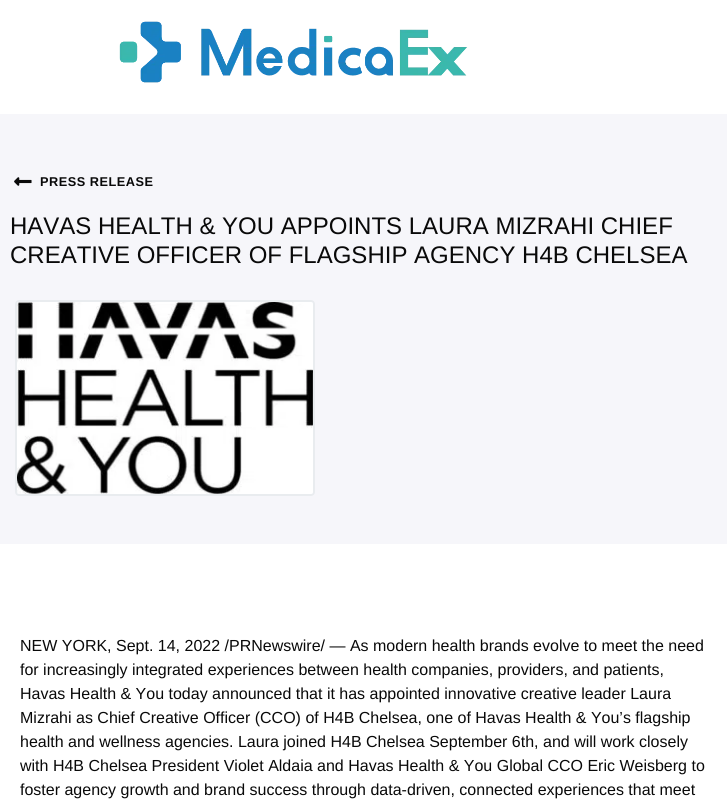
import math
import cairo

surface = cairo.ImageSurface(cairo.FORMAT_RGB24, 727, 807)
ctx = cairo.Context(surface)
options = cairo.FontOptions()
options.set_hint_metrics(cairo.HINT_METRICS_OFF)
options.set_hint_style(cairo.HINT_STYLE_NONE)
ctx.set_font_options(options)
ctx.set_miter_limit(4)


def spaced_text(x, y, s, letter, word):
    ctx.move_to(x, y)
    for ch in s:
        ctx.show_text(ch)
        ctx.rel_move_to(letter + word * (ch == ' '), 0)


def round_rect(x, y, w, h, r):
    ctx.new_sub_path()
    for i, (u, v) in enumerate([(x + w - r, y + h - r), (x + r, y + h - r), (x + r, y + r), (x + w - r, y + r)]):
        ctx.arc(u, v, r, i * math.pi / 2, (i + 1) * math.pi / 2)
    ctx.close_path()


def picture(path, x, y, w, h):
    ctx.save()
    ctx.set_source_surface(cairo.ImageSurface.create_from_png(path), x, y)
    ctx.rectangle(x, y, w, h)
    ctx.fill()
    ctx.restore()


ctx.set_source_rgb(1, 1, 1)
ctx.paint()
picture("img1.png", 119, 21, 349, 62)
ctx.set_source_rgb(0.961, 0.961, 0.98)
ctx.rectangle(0, 114, 727, 430)
ctx.fill()
picture("img2.png", 14, 177, 18, 9)
ctx.select_font_face("Liberation Sans", cairo.FONT_SLANT_NORMAL, cairo.FONT_WEIGHT_BOLD)
ctx.set_font_size(12.75)
ctx.set_source_rgb(0.039, 0.039, 0.039)
spaced_text(40, 186, "PRESS RELEASE", 0.5, 0)
ctx.select_font_face("Liberation Sans")
ctx.set_font_size(24)
ctx.move_to(10, 234)
ctx.show_text("HAVAS HEALTH & YOU APPOINTS LAURA MIZRAHI CHIEF")
ctx.move_to(10, 263)
ctx.show_text("CREATIVE OFFICER OF FLAGSHIP AGENCY H4B CHELSEA")
round_rect(16, 301, 298, 194, 3)
ctx.set_source_rgb(0.914, 0.925, 0.937)
ctx.stroke()
picture("img3.png", 17, 302, 296, 192)
ctx.set_font_size(16)
ctx.set_source_rgb(0.039, 0.039, 0.039)
ctx.move_to(20, 651)
ctx.show_text("NEW YORK, Sept. 14, 2022 /PRNewswire/ — As modern health brands evolve to meet the need")
ctx.move_to(20, 675)
ctx.show_text("for increasingly integrated experiences between health companies, providers, and patients,")
ctx.move_to(20, 699)
ctx.show_text("Havas Health & You today announced that it has appointed innovative creative leader Laura")
ctx.move_to(20, 723)
ctx.show_text("Mizrahi as Chief Creative Officer (CCO) of H4B Chelsea, one of Havas Health & You’s flagship")
ctx.move_to(20, 747)
ctx.show_text("health and wellness agencies. Laura joined H4B Chelsea September 6th, and will work closely")
ctx.move_to(20, 771)
ctx.show_text("with H4B Chelsea President Violet Aldaia and Havas Health & You Global CCO Eric Weisberg to")
ctx.move_to(20, 795)
ctx.show_text("foster agency growth and brand success through data-driven, connected experiences that meet")
surface.write_to_png("page.png")
